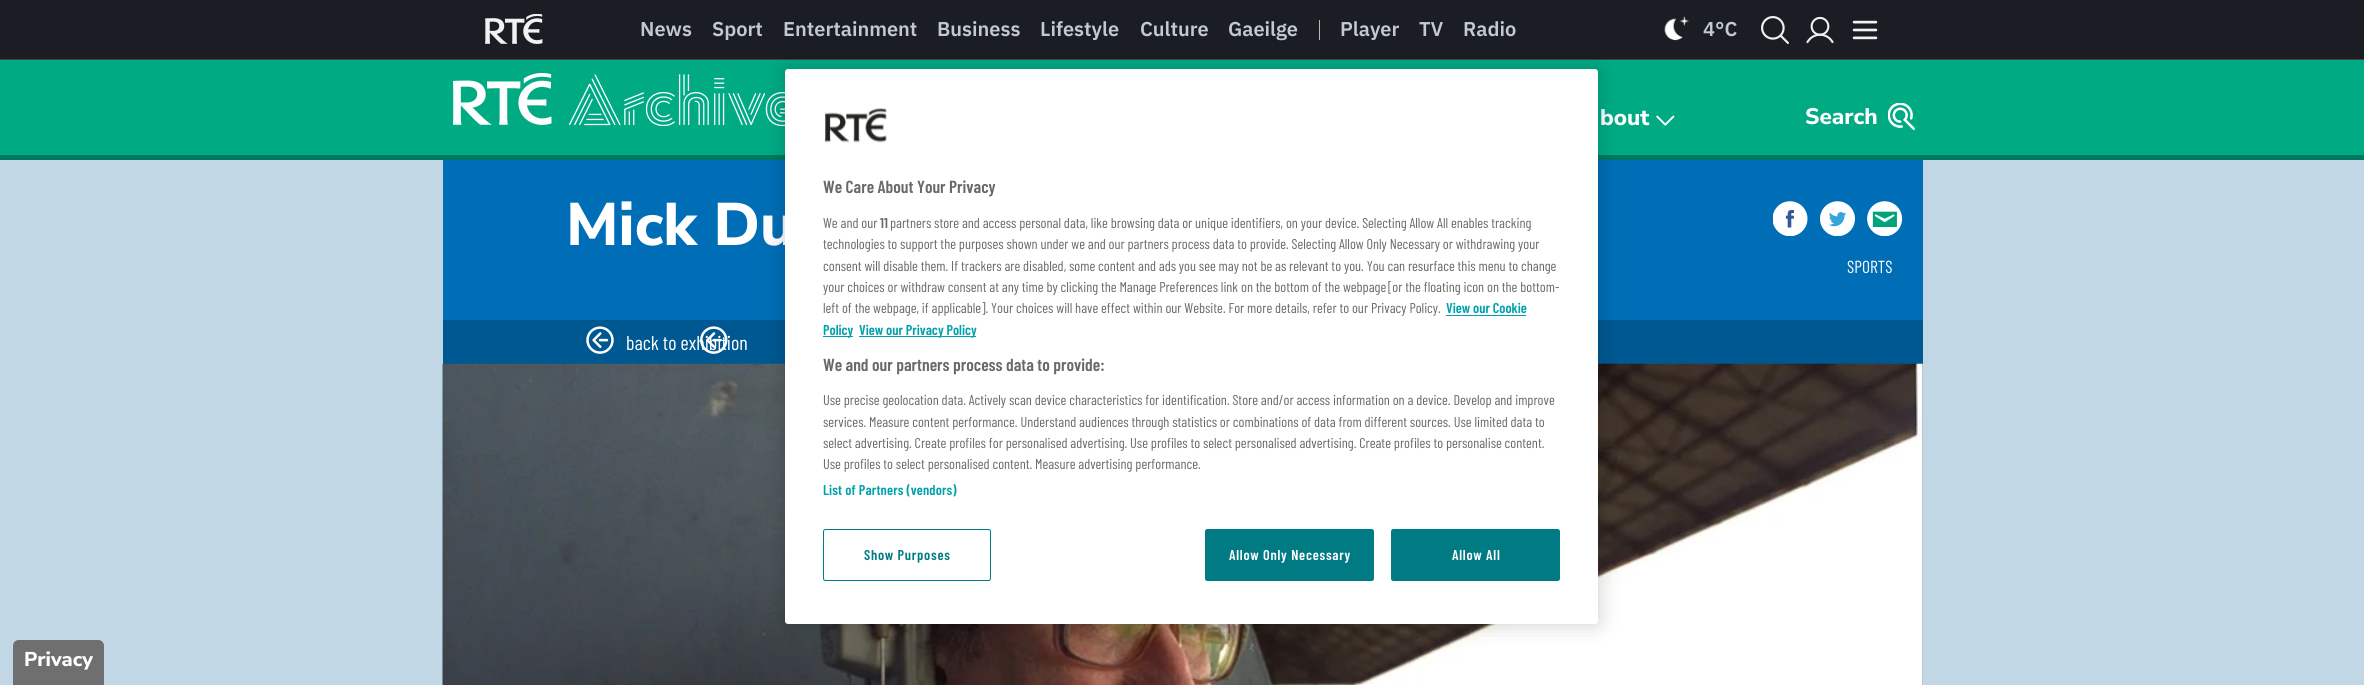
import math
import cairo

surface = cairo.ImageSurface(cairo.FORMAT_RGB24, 2364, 685)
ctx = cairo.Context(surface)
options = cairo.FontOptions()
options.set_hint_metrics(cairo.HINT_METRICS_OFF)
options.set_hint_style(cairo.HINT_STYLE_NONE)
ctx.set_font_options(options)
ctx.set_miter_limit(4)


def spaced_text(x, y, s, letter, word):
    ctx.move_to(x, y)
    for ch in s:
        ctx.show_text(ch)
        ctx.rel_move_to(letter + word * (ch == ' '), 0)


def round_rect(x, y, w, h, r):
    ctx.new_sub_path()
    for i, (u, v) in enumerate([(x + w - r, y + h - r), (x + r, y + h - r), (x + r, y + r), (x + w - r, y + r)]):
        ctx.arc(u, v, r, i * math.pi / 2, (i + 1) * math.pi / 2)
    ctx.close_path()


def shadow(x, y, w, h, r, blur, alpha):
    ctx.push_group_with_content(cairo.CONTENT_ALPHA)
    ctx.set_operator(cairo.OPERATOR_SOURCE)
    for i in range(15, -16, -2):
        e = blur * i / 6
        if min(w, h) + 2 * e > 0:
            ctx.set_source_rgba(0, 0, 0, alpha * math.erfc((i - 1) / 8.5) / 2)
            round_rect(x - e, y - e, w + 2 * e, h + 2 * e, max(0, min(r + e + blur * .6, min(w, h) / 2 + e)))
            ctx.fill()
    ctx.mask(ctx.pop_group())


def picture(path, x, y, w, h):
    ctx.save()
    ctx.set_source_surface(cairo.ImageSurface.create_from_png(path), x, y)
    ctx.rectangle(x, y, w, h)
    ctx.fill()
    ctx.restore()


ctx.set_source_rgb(0.757, 0.843, 0.902)
ctx.paint()
ctx.set_source_rgb(0.102, 0.118, 0.141)
ctx.rectangle(0, 0, 2364, 59)
ctx.fill()
ctx.set_source_rgb(0.278, 0.271, 0.243)
ctx.rectangle(0, 59, 2364, 1)
ctx.fill()
picture("img1.png", 485, 14, 58, 30)
ctx.select_font_face("IBM Plex Sans SemiBold")
ctx.set_font_size(20)
ctx.set_source_rgb(0.761, 0.788, 0.82)
ctx.move_to(640, 36)
ctx.show_text("News")
ctx.move_to(712, 36)
ctx.show_text("Sport")
ctx.move_to(783, 36)
ctx.show_text("Entertainment")
ctx.move_to(937, 36)
ctx.show_text("Business")
ctx.move_to(1040, 36)
ctx.show_text("Lifestyle")
ctx.move_to(1140, 36)
ctx.show_text("Culture")
ctx.move_to(1228, 36)
ctx.show_text("Gaeilge")
ctx.set_source_rgb(0.737, 0.722, 0.69)
ctx.rectangle(1319, 20, 1, 20)
ctx.fill()
ctx.set_source_rgb(0.761, 0.788, 0.82)
ctx.move_to(1340, 36)
ctx.show_text("Player")
ctx.move_to(1419, 36)
ctx.show_text("TV")
ctx.move_to(1463, 36)
ctx.show_text("Radio")
picture("img2.png", 1664, 16, 25, 25)
ctx.move_to(1703, 36)
ctx.show_text("4°C")
picture("img3.png", 1761, 16, 28, 28)
picture("img4.png", 1806, 16, 28, 28)
picture("img5.png", 1852, 20, 26, 20)
ctx.set_source_rgb(0, 0.671, 0.518)
ctx.rectangle(0, 60, 2364, 95)
ctx.fill()
ctx.set_source_rgb(0, 0.471, 0.365)
ctx.rectangle(0, 155, 2364, 5)
ctx.fill()
picture("img6.png", 453, 73, 332, 53)
ctx.select_font_face("Nunito Sans ExtraLight")
ctx.set_font_size(22.5)
ctx.set_source_rgb(1, 1, 1)
ctx.move_to(1600, 125)
ctx.show_text("bout")
picture("img7.png", 1656, 115, 19, 11)
picture("img8.png", 1888, 103, 27, 27)
ctx.move_to(1805, 124)
ctx.show_text("Search")
ctx.set_source_rgb(0, 0.431, 0.714)
ctx.rectangle(443, 160, 1480, 160)
ctx.fill()
ctx.set_font_size(60)
ctx.set_source_rgb(1, 1, 1)
ctx.move_to(566, 245)
ctx.show_text("Mick Du")
picture("img9.png", 1773, 201, 35, 35)
picture("img10.png", 1820, 201, 35, 35)
picture("img11.png", 1867, 201, 36, 35)
ctx.select_font_face("Barlow Condensed")
ctx.set_font_size(17.5)
ctx.move_to(1847, 273)
ctx.show_text("SPORTS")
ctx.set_source_rgb(0, 0.345, 0.573)
ctx.rectangle(443, 320, 1480, 44)
ctx.fill()
picture("img12.png", 586, 326, 142, 28)
ctx.set_font_size(20)
ctx.set_source_rgb(1, 1, 1)
ctx.move_to(626, 350)
ctx.show_text("back to exhibition")
ctx.set_source_rgb(0.49, 0.549, 0.588)
ctx.rectangle(1922, 364, 1, 321)
ctx.fill()
picture("img13.png", 442, 363, 1481, 322)
ctx.set_source_rgb(0, 0, 0)
shadow(785, 69, 813, 555, 3, 11, 0.2)
ctx.set_source_rgb(1, 1, 1)
round_rect(785, 69, 813, 555, 3)
ctx.fill()
picture("img14.png", 824, 107, 63, 36)
ctx.select_font_face("Barlow Condensed SemiBold")
ctx.set_font_size(17.5)
ctx.set_source_rgb(0.412, 0.412, 0.412)
ctx.move_to(823, 193)
ctx.show_text("We Care About Your Privacy")
ctx.select_font_face("Barlow Condensed")
ctx.set_font_size(14.23)
ctx.move_to(823, 228)
ctx.show_text("We and our")
ctx.select_font_face("Barlow Condensed SemiBold")
ctx.move_to(880, 228)
ctx.show_text("11")
ctx.select_font_face("Barlow Condensed")
ctx.move_to(890, 228)
ctx.show_text("partners store and access personal data, like browsing data or unique identifiers, on your device. Selecting Allow All enables tracking")
ctx.move_to(823, 249)
ctx.show_text("technologies to support the purposes shown under we and our partners process data to provide. Selecting Allow Only Necessary or withdrawing your")
ctx.move_to(823, 271)
ctx.show_text("consent will disable them. If trackers are disabled, some content and ads you see may not be as relevant to you. You can resurface this menu to change")
ctx.move_to(823, 292)
ctx.show_text("your choices or withdraw consent at any time by clicking the Manage Preferences link on the bottom of the webpage")
ctx.move_to(1388, 292)
ctx.show_text("[or the floating icon on the bottom-")
ctx.move_to(823, 313)
ctx.show_text("left of the webpage, if applicable]. Your choices will have effect within our Website. For more details, refer to our Privacy Policy.")
ctx.select_font_face("Barlow Condensed SemiBold")
ctx.set_source_rgb(0, 0.631, 0.678)
ctx.move_to(1446, 313)
ctx.show_text("View our Cookie")
ctx.rectangle(1446, 315, 80, 1)
ctx.fill()
ctx.rectangle(823, 336, 30, 1)
ctx.fill()
ctx.move_to(823, 335)
ctx.show_text("Policy")
ctx.rectangle(859, 336, 117, 1)
ctx.fill()
ctx.move_to(859, 335)
ctx.show_text("View our Privacy Policy")
ctx.set_font_size(17.5)
ctx.set_source_rgb(0.412, 0.412, 0.412)
ctx.move_to(823, 371)
ctx.show_text("We and our partners process data to provide:")
ctx.select_font_face("Barlow Condensed")
ctx.set_font_size(14.23)
ctx.move_to(823, 405)
ctx.show_text("Use precise geolocation data. Actively scan device characteristics for identification. Store and/or access information on a device. Develop and improve")
ctx.move_to(823, 427)
ctx.show_text("services. Measure content performance. Understand audiences through statistics or combinations of data from different sources. Use limited data to")
ctx.move_to(823, 448)
ctx.show_text("select advertising. Create profiles for personalised advertising. Use profiles to select personalised advertising. Create profiles to personalise content.")
ctx.move_to(823, 469)
ctx.show_text("Use profiles to select personalised content. Measure advertising performance.")
ctx.select_font_face("Barlow Condensed SemiBold")
ctx.set_source_rgb(0, 0.631, 0.678)
spaced_text(823, 495, "List of Partners (vendors)", 0.15, 0)
round_rect(823.5, 529.5, 167, 51, 2)
ctx.set_source_rgb(0, 0.482, 0.518)
ctx.set_line_width(1)
ctx.stroke()
spaced_text(864, 560, "Show Purposes", 0.75, 0)
round_rect(1205.5, 529.5, 168, 51, 2)
ctx.fill_preserve()
ctx.stroke()
ctx.set_source_rgb(1, 1, 1)
spaced_text(1229, 560, "Allow Only Necessary", 0.75, 0)
ctx.set_source_rgb(0, 0.482, 0.518)
round_rect(1391.5, 529.5, 168, 51, 2)
ctx.fill_preserve()
ctx.stroke()
ctx.set_source_rgb(1, 1, 1)
spaced_text(1452, 560, "Allow All", 0.75, 0)
ctx.set_source_rgb(0.435, 0.435, 0.435)
ctx.new_path()
ctx.move_to(19, 640)
ctx.line_to(98, 640)
ctx.curve_to(101.5, 640, 104, 642.5, 104, 646)
ctx.line_to(104, 685)
ctx.line_to(13, 685)
ctx.line_to(13, 646)
ctx.curve_to(13, 642.5, 15.5, 640, 19, 640)
ctx.close_path()
ctx.fill()
ctx.select_font_face("Nunito Sans ExtraLight")
ctx.set_font_size(20)
ctx.set_source_rgb(1, 1, 1)
ctx.move_to(24, 666)
ctx.show_text("Privacy")
surface.write_to_png("page.png")
